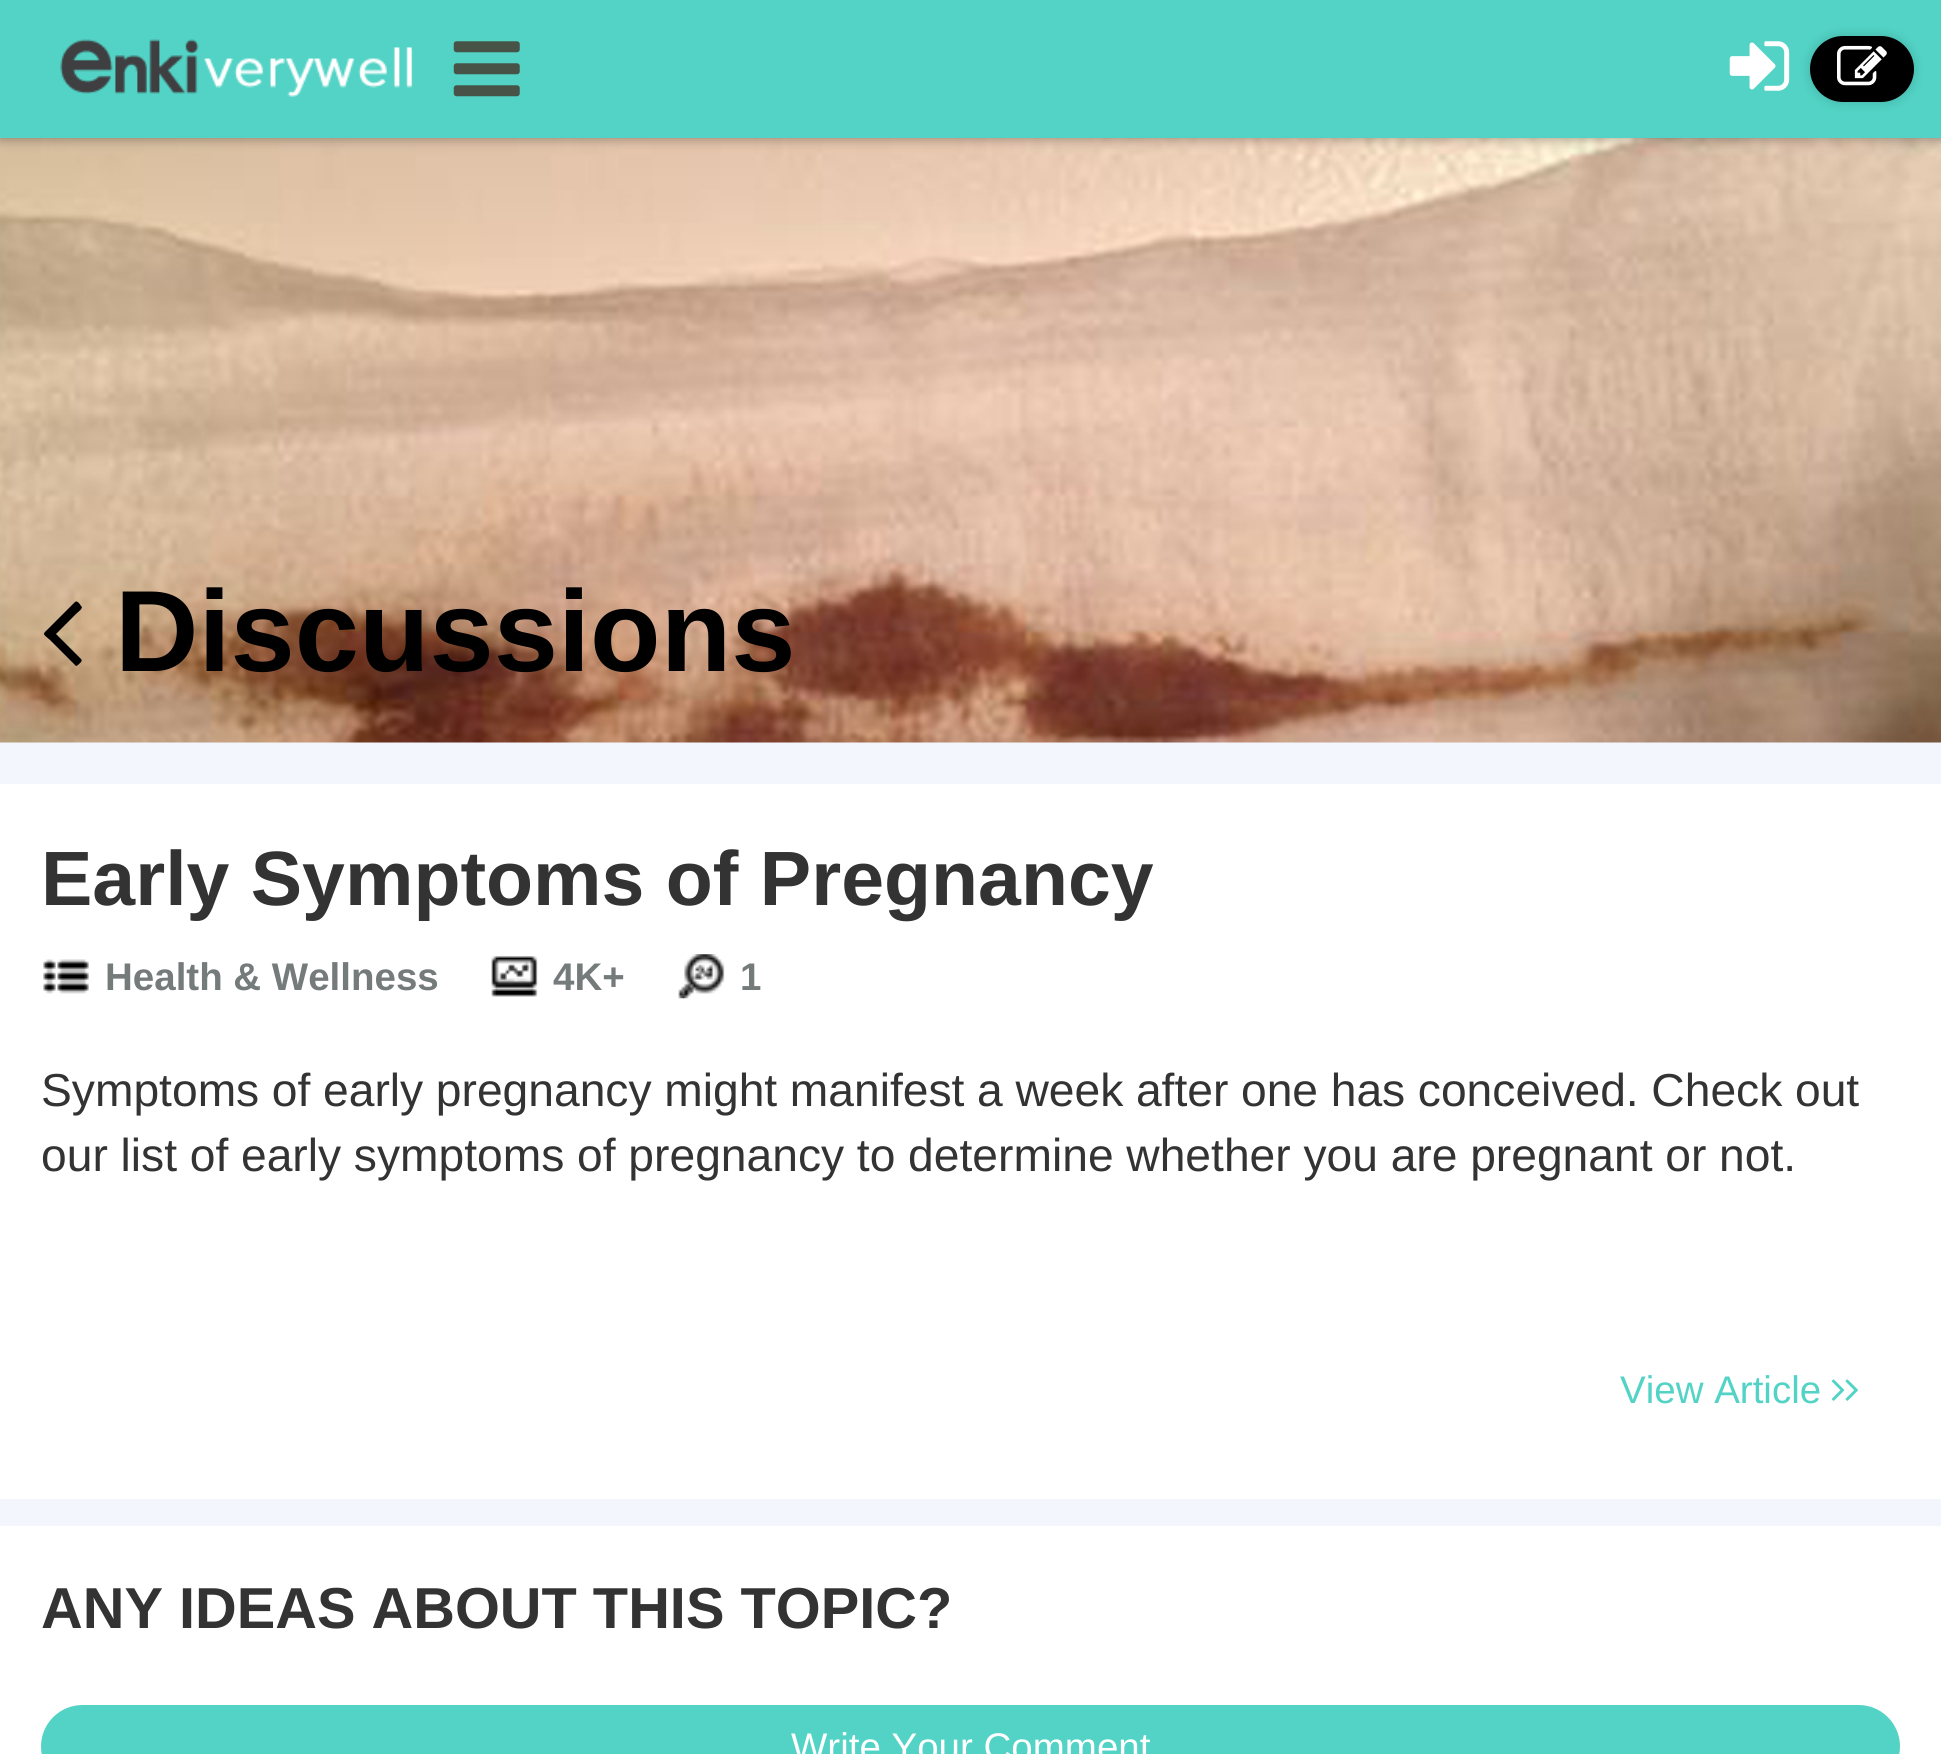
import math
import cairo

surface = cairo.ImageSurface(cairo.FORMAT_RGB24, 1941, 1754)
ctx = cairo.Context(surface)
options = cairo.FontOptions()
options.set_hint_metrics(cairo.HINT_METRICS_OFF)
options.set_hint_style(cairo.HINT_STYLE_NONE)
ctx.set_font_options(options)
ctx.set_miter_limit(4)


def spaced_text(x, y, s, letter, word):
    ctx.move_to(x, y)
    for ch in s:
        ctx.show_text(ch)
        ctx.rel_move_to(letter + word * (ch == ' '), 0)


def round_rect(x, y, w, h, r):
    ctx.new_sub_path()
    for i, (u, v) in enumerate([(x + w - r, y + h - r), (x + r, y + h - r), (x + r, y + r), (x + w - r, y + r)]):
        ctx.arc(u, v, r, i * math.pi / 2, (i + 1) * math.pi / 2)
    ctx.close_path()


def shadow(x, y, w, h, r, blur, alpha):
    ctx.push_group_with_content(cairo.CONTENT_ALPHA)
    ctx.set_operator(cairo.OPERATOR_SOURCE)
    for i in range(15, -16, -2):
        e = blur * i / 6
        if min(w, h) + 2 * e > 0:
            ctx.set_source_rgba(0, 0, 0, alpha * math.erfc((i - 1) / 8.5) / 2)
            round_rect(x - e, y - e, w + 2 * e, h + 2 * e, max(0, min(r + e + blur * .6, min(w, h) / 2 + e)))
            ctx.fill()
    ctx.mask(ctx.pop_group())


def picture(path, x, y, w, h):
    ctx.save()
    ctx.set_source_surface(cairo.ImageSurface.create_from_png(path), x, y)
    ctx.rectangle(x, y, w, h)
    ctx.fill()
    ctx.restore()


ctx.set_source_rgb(0.953, 0.961, 0.988)
ctx.paint()
picture("img5.png", 0, 138, 1941, 605)
ctx.set_source_rgb(0, 0, 0)
shadow(0, 3, 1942, 137, 0, 5.5, 0.3)
ctx.set_source_rgb(0.322, 0.827, 0.773)
ctx.rectangle(0, 0, 1941, 138)
ctx.fill()
picture("img1.png", 60, 39, 353, 59)
picture("img2.png", 453, 41, 67, 56)
picture("img3.png", 1729, 41, 61, 50)
ctx.set_source_rgb(0, 0, 0)
shadow(1807, 33, 110, 72, 36, 4, 0.1)
ctx.set_source_rgb(0, 0, 0)
round_rect(1810, 36, 104, 66, 33)
ctx.fill()
picture("img4.png", 1837, 45, 50, 41)
ctx.new_path()
ctx.move_to(81, 606)
ctx.curve_to(84, 608, 78, 612, 77, 613)
ctx.line_to(56, 634)
ctx.line_to(81, 659)
ctx.curve_to(83, 661, 80, 663, 79, 664)
ctx.curve_to(78, 665, 76, 667, 75, 665)
ctx.line_to(50, 640)
ctx.curve_to(42, 633, 42, 635, 50, 627)
ctx.line_to(75, 602)
ctx.curve_to(77, 600, 80, 604, 81, 606)
ctx.close_path()
ctx.fill()
ctx.select_font_face("Liberation Sans", cairo.FONT_SLANT_NORMAL, cairo.FONT_WEIGHT_BOLD)
ctx.set_font_size(115.5)
ctx.move_to(115, 671)
ctx.show_text("Discussions")
ctx.set_source_rgb(1, 1, 1)
ctx.rectangle(0, 784, 1941, 715)
ctx.fill()
ctx.set_font_size(77)
ctx.set_source_rgb(0.2, 0.2, 0.2)
ctx.move_to(41, 905)
ctx.show_text("Early Symptoms of Pregnancy")
picture("img6.png", 43, 959, 46, 35)
ctx.set_font_size(38.5)
ctx.set_source_rgb(0.459, 0.478, 0.482)
ctx.move_to(105, 990)
ctx.show_text("Health & Wellness")
picture("img7.png", 491, 955, 48, 42)
ctx.move_to(553, 990)
ctx.show_text("4K+")
picture("img8.png", 678, 954, 47, 45)
ctx.move_to(740, 990)
ctx.show_text("1")
ctx.select_font_face("Liberation Sans")
ctx.set_font_size(46.2)
ctx.set_source_rgb(0.2, 0.2, 0.2)
spaced_text(41, 1106, "Symptoms of early pregnancy might manifest a week after one has conceived. Check out", 0, -0.2)
spaced_text(41, 1171, "our list of early symptoms of pregnancy to determine whether you are pregnant or not.", 0, -0.1)
ctx.set_font_size(38.5)
ctx.set_source_rgb(0.325, 0.827, 0.773)
ctx.move_to(1620, 1403)
ctx.show_text("View Article")
picture("img9.png", 1831, 1379, 14, 22)
picture("img10.png", 1845, 1379, 13, 22)
ctx.set_source_rgb(1, 1, 1)
ctx.rectangle(0, 1526, 1941, 228)
ctx.fill()
ctx.select_font_face("Liberation Sans", cairo.FONT_SLANT_NORMAL, cairo.FONT_WEIGHT_BOLD)
ctx.set_font_size(57.75)
ctx.set_source_rgb(0.2, 0.2, 0.2)
ctx.move_to(41, 1628)
ctx.show_text("ANY IDEAS ABOUT THIS TOPIC?")
ctx.set_source_rgb(0.325, 0.827, 0.773)
round_rect(41, 1705, 1859, 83, 41.5)
ctx.fill()
ctx.select_font_face("Liberation Sans")
ctx.set_font_size(38.5)
ctx.set_source_rgb(1, 1, 1)
ctx.move_to(791, 1760)
ctx.show_text("Write Your Comment")
surface.write_to_png("page.png")
